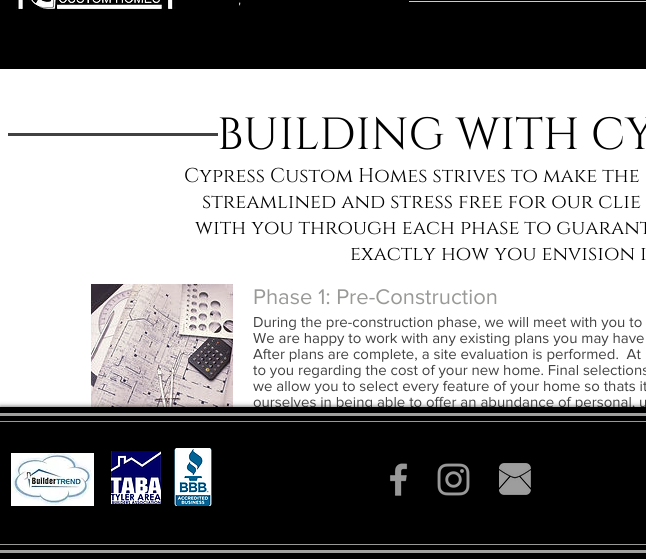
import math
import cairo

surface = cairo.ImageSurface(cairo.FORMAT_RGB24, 646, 559)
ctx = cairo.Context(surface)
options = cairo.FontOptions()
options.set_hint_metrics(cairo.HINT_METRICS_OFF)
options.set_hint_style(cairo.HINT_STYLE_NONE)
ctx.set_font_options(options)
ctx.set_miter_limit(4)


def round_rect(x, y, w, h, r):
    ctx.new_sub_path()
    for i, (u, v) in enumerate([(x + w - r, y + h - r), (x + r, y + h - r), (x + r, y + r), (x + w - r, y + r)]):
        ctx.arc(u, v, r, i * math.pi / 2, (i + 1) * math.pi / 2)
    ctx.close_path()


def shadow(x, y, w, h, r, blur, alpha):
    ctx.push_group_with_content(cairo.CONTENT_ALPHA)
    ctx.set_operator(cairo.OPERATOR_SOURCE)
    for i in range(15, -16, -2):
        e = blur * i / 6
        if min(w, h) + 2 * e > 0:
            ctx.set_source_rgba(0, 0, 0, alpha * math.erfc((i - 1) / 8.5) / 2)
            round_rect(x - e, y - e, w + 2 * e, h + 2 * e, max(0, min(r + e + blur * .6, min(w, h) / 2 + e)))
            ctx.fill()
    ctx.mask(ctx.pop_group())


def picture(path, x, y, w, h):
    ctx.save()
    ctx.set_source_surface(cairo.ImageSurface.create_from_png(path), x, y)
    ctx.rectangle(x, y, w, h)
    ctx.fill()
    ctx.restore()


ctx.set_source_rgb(1, 1, 1)
ctx.paint()
ctx.set_source_rgb(0, 0, 0)
ctx.rectangle(0, 0, 646, 69)
ctx.fill()
picture("img1.png", 16, 0, 160, 10)
ctx.set_source_rgb(0.792, 0.792, 0.792)
ctx.rectangle(409, 1, 237, 1)
ctx.fill()
ctx.select_font_face("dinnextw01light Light")
ctx.set_font_size(16)
ctx.set_source_rgb(1, 1, 1)
ctx.move_to(238, 4)
ctx.show_text(",")
ctx.set_source_rgb(0.255, 0.255, 0.255)
ctx.rectangle(8, 133, 210, 3)
ctx.fill()
ctx.select_font_face("Cinzel")
ctx.set_font_size(45)
ctx.set_source_rgb(0, 0, 0)
ctx.move_to(217, 149)
ctx.show_text("BUILDING WITH CY")
ctx.set_font_size(20)
ctx.move_to(184, 182)
ctx.show_text("Cypress Custom Homes strives to make the")
ctx.move_to(202, 208)
ctx.show_text("streamlined and stress free for our clie")
ctx.move_to(195, 234)
ctx.show_text("with you through each phase to guarant")
ctx.move_to(350, 260)
ctx.show_text("exactly how you envision i")
picture("img2.png", 91, 284, 142, 123)
ctx.select_font_face("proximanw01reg")
ctx.set_font_size(22)
ctx.set_source_rgb(0.6, 0.6, 0.592)
ctx.move_to(253, 304)
ctx.show_text("Phase 1: Pre-Construction")
ctx.set_font_size(15)
ctx.set_source_rgb(0.255, 0.255, 0.255)
ctx.move_to(253, 327)
ctx.show_text("During the pre-construction phase, we will meet with you to")
ctx.move_to(253, 343)
ctx.show_text("We are happy to work with any existing plans you may have")
ctx.move_to(253, 359)
ctx.show_text("After plans are complete, a site evaluation is performed.  At")
ctx.move_to(253, 375)
ctx.show_text("to you regarding the cost of your new home. Final selections")
ctx.move_to(253, 391)
ctx.show_text("we allow you to select every feature of your home so thats it")
ctx.move_to(253, 407)
ctx.show_text("ourselves in being able to offer an abundance of personal, u")
ctx.set_source_rgb(0, 0, 0)
shadow(0, 407, 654, 152, 0, 2.5, 0.7)
ctx.set_source_rgb(0, 0, 0)
ctx.rectangle(0, 407, 646, 152)
ctx.fill()
ctx.set_source_rgb(0.627, 0.627, 0.624)
ctx.rectangle(0, 413, 646, 3)
ctx.fill()
ctx.rectangle(0, 550, 646, 3)
ctx.fill()
ctx.set_source_rgb(0.6, 0.6, 0.592)
ctx.rectangle(0, 421, 646, 1)
ctx.fill()
ctx.rectangle(0, 544, 646, 1)
ctx.fill()
picture("img3.png", 11, 453, 83, 53)
picture("img4.png", 111, 451, 50, 53)
picture("img5.png", 174, 448, 38, 58)
picture("img6.png", 389, 463, 19, 33)
picture("img7.png", 437, 463, 33, 33)
picture("img8.png", 499, 463, 32, 32)
surface.write_to_png("page.png")
